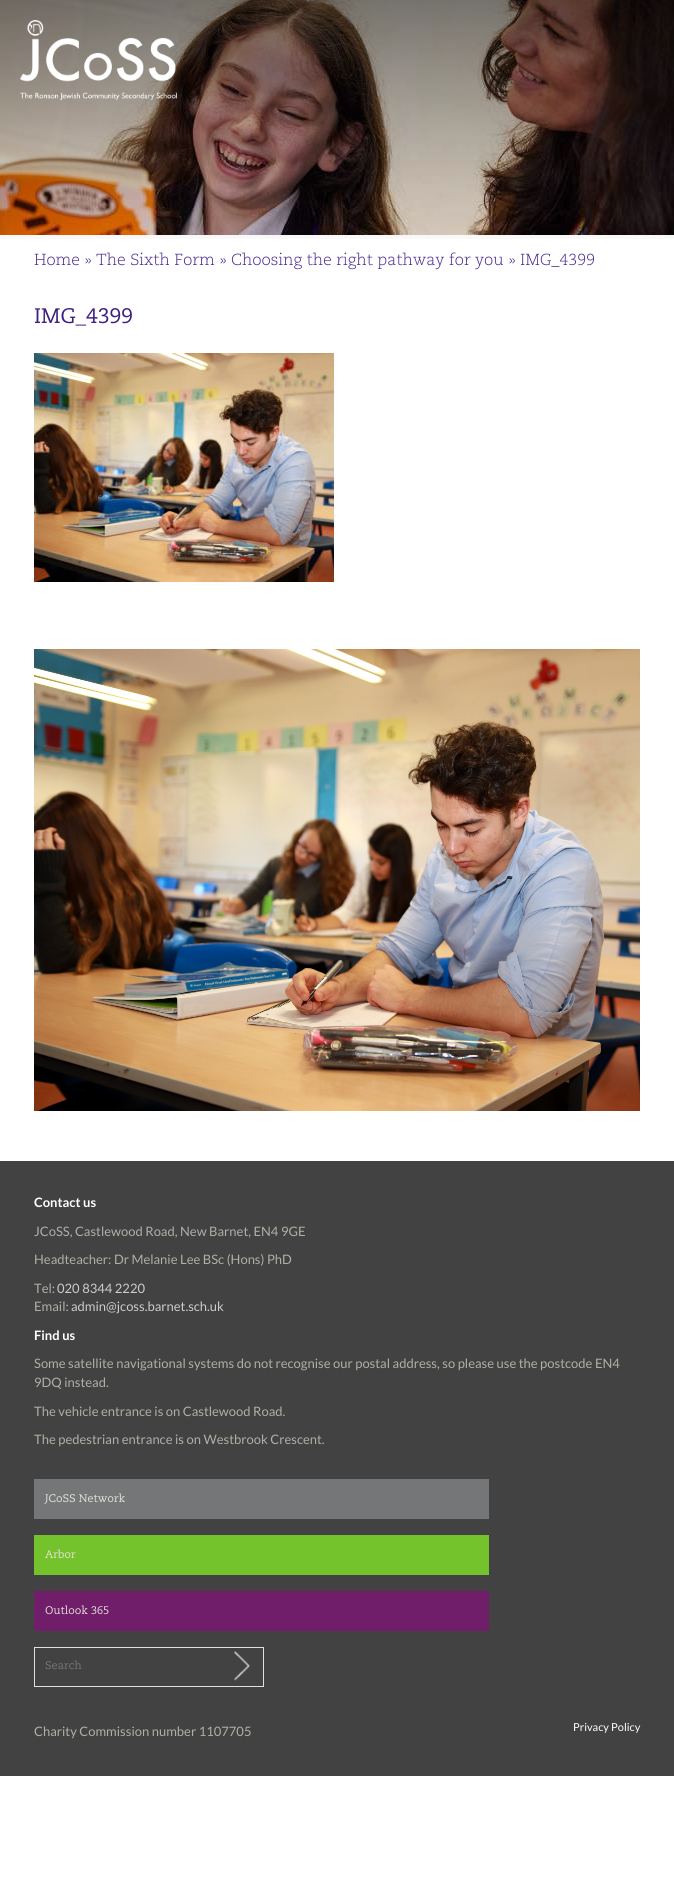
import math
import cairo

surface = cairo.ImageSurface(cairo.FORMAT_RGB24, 674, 1904)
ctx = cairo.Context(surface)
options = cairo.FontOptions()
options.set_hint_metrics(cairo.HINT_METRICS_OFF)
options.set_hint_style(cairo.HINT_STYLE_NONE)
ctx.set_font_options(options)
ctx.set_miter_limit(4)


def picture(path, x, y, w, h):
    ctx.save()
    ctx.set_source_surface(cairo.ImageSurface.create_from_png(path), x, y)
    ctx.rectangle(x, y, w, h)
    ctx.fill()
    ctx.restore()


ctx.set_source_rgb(1, 1, 1)
ctx.paint()
picture("img1.png", 0, 0, 674, 235)
gradient = cairo.LinearGradient(337, 0, 337, 250)
gradient.add_color_stop_rgba(0, 0, 0, 0, 0.5)
gradient.add_color_stop_rgba(1, 0, 0, 0, 0)
ctx.set_source(gradient)
ctx.rectangle(0, 0, 674, 239)
ctx.fill()
picture("img2.png", 34, 253, 46, 13)
picture("img3.png", 85, 258, 6, 6)
picture("img4.png", 96, 252, 119, 14)
picture("img3.png", 220, 258, 6, 6)
picture("img5.png", 231, 252, 272, 18)
picture("img3.png", 509, 258, 6, 6)
picture("img6.png", 520, 253, 74, 14)
picture("img7.png", 34, 308, 98, 18)
picture("img8.png", 34, 353, 300, 229)
picture("img9.png", 34, 649, 606, 462)
picture("img10.png", 20, 20, 157, 80)
ctx.set_source_rgb(0.259, 0.259, 0.259)
ctx.rectangle(0, 1161, 674, 615)
ctx.fill()
ctx.select_font_face("Lato", cairo.FONT_SLANT_NORMAL, cairo.FONT_WEIGHT_BOLD)
ctx.set_font_size(13)
ctx.set_source_rgb(1, 1, 1)
ctx.move_to(34, 1207)
ctx.show_text("Contact us")
ctx.select_font_face("Lato")
ctx.set_source_rgb(0.694, 0.682, 0.651)
ctx.move_to(34, 1236)
ctx.show_text("JCoSS, Castlewood Road, New Barnet, EN4 9GE")
ctx.move_to(34, 1264)
ctx.show_text("Headteacher: Dr Melanie Lee BSc (Hons) PhD")
ctx.move_to(34, 1293)
ctx.show_text("Tel:")
ctx.set_source_rgb(0.8, 0.8, 0.8)
ctx.move_to(57, 1293)
ctx.show_text("020 8344 2220")
ctx.set_source_rgb(0.694, 0.682, 0.651)
ctx.move_to(34, 1311)
ctx.show_text("Email:")
ctx.set_source_rgb(0.8, 0.8, 0.8)
ctx.move_to(71, 1311)
ctx.show_text("admin@jcoss.barnet.sch.uk")
ctx.select_font_face("Lato", cairo.FONT_SLANT_NORMAL, cairo.FONT_WEIGHT_BOLD)
ctx.set_source_rgb(1, 1, 1)
ctx.move_to(34, 1340)
ctx.show_text("Find us")
ctx.select_font_face("Lato")
ctx.set_source_rgb(0.694, 0.682, 0.651)
ctx.move_to(34, 1368)
ctx.show_text("Some satellite navigational systems do not recognise our postal address, so please use the postcode EN4")
ctx.move_to(34, 1387)
ctx.show_text("9DQ instead.")
ctx.move_to(34, 1416)
ctx.show_text("The vehicle entrance is on Castlewood Road.")
ctx.move_to(34, 1444)
ctx.show_text("The pedestrian entrance is on Westbrook Crescent.")
ctx.set_source_rgb(0.459, 0.463, 0.471)
ctx.rectangle(34, 1479, 455, 40)
ctx.fill()
picture("img11.png", 44, 1493, 81, 11)
ctx.set_source_rgb(0.455, 0.765, 0.173)
ctx.rectangle(34, 1535, 455, 40)
ctx.fill()
picture("img12.png", 45, 1549, 31, 10)
ctx.set_source_rgb(0.439, 0.114, 0.416)
ctx.rectangle(34, 1591, 455, 40)
ctx.fill()
picture("img13.png", 45, 1605, 64, 10)
ctx.rectangle(34.5, 1647.5, 229, 39)
ctx.set_source_rgb(0.882, 0.878, 0.839)
ctx.set_line_width(1)
ctx.stroke()
picture("img14.png", 45, 1660, 37, 10)
picture("img15.png", 234, 1651, 16, 30)
ctx.set_source_rgb(0.694, 0.682, 0.651)
ctx.move_to(34, 1736)
ctx.show_text("Charity Commission number 1107705")
ctx.set_font_size(11)
ctx.set_source_rgb(1, 1, 1)
ctx.move_to(573, 1731)
ctx.show_text("Privacy Policy")
surface.write_to_png("page.png")
